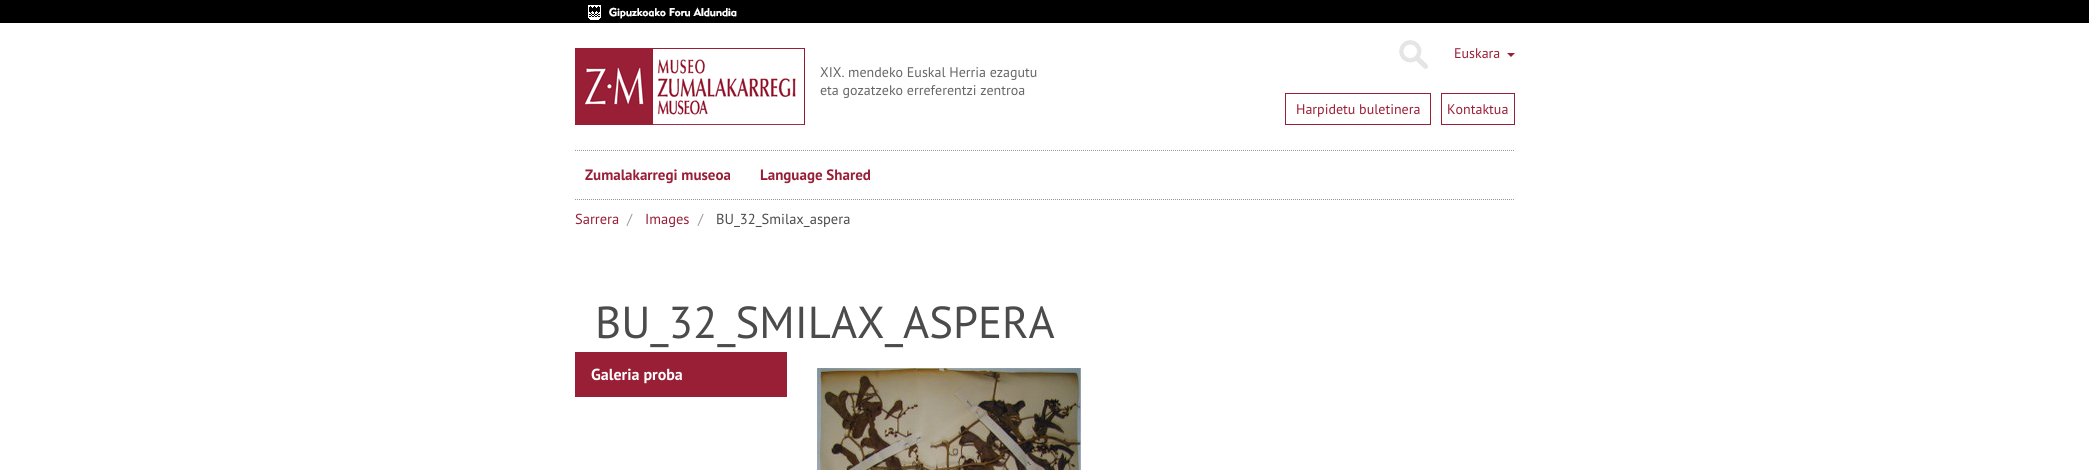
import math
import cairo

surface = cairo.ImageSurface(cairo.FORMAT_RGB24, 2089, 470)
ctx = cairo.Context(surface)
options = cairo.FontOptions()
options.set_hint_metrics(cairo.HINT_METRICS_OFF)
options.set_hint_style(cairo.HINT_STYLE_NONE)
ctx.set_font_options(options)
ctx.set_miter_limit(4)


def picture(path, x, y, w, h):
    ctx.save()
    ctx.set_source_surface(cairo.ImageSurface.create_from_png(path), x, y)
    ctx.rectangle(x, y, w, h)
    ctx.fill()
    ctx.restore()


ctx.set_source_rgb(1, 1, 1)
ctx.paint()
ctx.set_source_rgb(0, 0, 0)
ctx.rectangle(0, 0, 2089, 23)
ctx.fill()
picture("img1.png", 588, 5, 149, 15)
picture("img2.png", 575, 48, 230, 77)
picture("img3.png", 1399, 40, 29, 29)
ctx.select_font_face("PT Sans")
ctx.set_font_size(14)
ctx.set_source_rgb(0.4, 0.4, 0.4)
ctx.move_to(820, 77)
ctx.show_text("XIX. mendeko Euskal Herria ezagutu")
ctx.move_to(820, 95)
ctx.show_text("eta gozatzeko erreferentzi zentroa")
ctx.set_source_rgb(0.6, 0.122, 0.212)
ctx.move_to(1454, 58)
ctx.show_text("Euskara")
ctx.new_path()
ctx.move_to(1507, 53)
ctx.line_to(1515, 53)
ctx.line_to(1511, 57)
ctx.close_path()
ctx.fill()
ctx.rectangle(1285.5, 93.5, 145, 31)
ctx.set_line_width(1)
ctx.stroke()
ctx.move_to(1296, 114)
ctx.show_text("Harpidetu buletinera")
ctx.rectangle(1441.5, 93.5, 73, 31)
ctx.stroke()
ctx.move_to(1447, 114)
ctx.show_text("Kontaktua")
ctx.new_path()
ctx.move_to(575, 150.5)
ctx.line_to(1515, 150.5)
ctx.set_source_rgb(0.6, 0.6, 0.6)
ctx.set_dash([1, 1])
ctx.stroke()
ctx.new_path()
ctx.move_to(575, 199.5)
ctx.line_to(1515, 199.5)
ctx.stroke()
ctx.select_font_face("PT Sans", cairo.FONT_SLANT_NORMAL, cairo.FONT_WEIGHT_BOLD)
ctx.set_font_size(15)
ctx.set_source_rgb(0.6, 0.122, 0.212)
ctx.move_to(585, 180)
ctx.show_text("Zumalakarregi museoa")
ctx.move_to(760, 180)
ctx.show_text("Language Shared")
ctx.select_font_face("PT Sans")
ctx.set_font_size(14.5)
ctx.move_to(575, 224)
ctx.show_text("Sarrera")
ctx.set_source_rgb(0.6, 0.6, 0.6)
ctx.move_to(627, 224)
ctx.show_text("/")
ctx.set_source_rgb(0.6, 0.122, 0.212)
ctx.move_to(645, 224)
ctx.show_text("Images")
ctx.set_source_rgb(0.6, 0.6, 0.6)
ctx.move_to(698, 224)
ctx.show_text("/")
ctx.set_source_rgb(0.294, 0.294, 0.294)
ctx.move_to(716, 224)
ctx.show_text("BU_32_Smilax_aspera")
ctx.set_font_size(44.75)
ctx.move_to(595, 338)
ctx.show_text("BU_32_SMILAX_ASPERA")
ctx.set_source_rgb(0.6, 0.122, 0.212)
ctx.rectangle(575, 352, 212, 45)
ctx.fill()
ctx.select_font_face("PT Sans", cairo.FONT_SLANT_NORMAL, cairo.FONT_WEIGHT_BOLD)
ctx.set_font_size(16)
ctx.set_source_rgb(1, 1, 1)
ctx.move_to(591, 380)
ctx.show_text("Galeria proba")
picture("img4.png", 817, 368, 264, 102)
surface.write_to_png("page.png")
